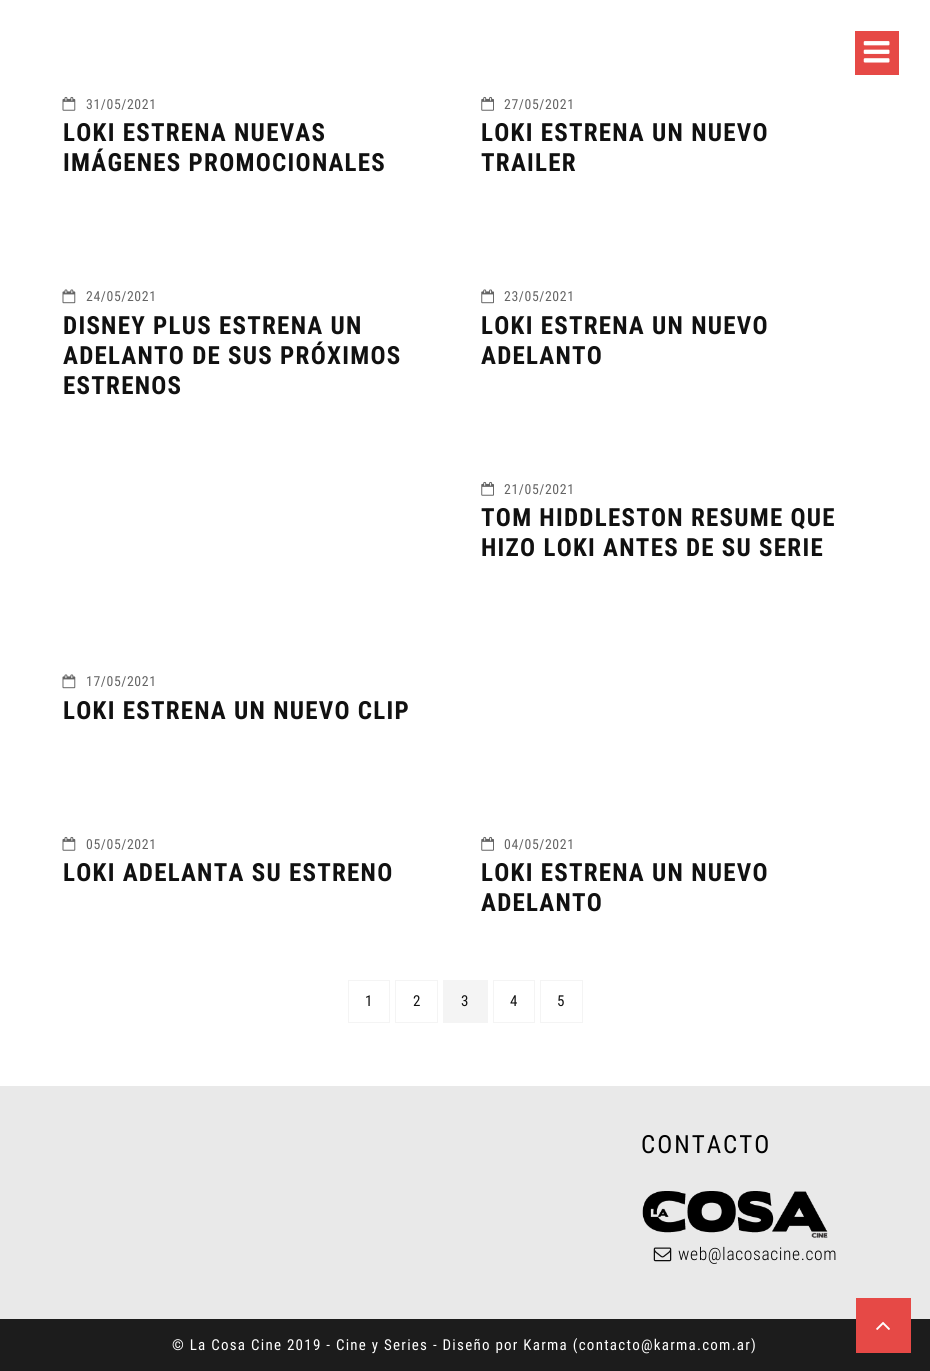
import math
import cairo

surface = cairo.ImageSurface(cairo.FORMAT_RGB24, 930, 1371)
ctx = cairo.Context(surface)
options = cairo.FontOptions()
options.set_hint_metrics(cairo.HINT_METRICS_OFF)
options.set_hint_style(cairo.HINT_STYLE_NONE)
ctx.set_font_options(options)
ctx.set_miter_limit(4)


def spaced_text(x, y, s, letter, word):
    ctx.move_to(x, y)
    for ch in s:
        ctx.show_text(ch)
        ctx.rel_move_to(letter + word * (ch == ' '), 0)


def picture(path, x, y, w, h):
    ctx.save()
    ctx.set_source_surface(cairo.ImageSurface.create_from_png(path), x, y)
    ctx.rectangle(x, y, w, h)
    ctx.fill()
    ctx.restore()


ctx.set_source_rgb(0.914, 0.914, 0.914)
ctx.paint()
ctx.set_source_rgb(1, 1, 1)
ctx.rectangle(0, 0, 930, 1086)
ctx.fill()
ctx.set_source_rgb(0.902, 0.286, 0.275)
ctx.rectangle(855, 31, 44, 44)
ctx.fill()
picture("img1.png", 863, 41, 27, 22)
picture("img2.png", 62, 96, 14, 15)
ctx.select_font_face("Roboto Condensed")
ctx.set_font_size(13.75)
ctx.set_source_rgb(0.392, 0.392, 0.392)
spaced_text(86, 109, "31/05/2021", 0.6, 0)
ctx.select_font_face("Roboto Condensed", cairo.FONT_SLANT_NORMAL, cairo.FONT_WEIGHT_BOLD)
ctx.set_font_size(25)
ctx.set_source_rgb(0.067, 0.067, 0.067)
spaced_text(63, 141, "LOKI ESTRENA NUEVAS", 1.25, 0)
spaced_text(63, 171, "IMÁGENES PROMOCIONALES", 1.25, 0)
picture("img3.png", 481, 96, 13, 15)
ctx.select_font_face("Roboto Condensed")
ctx.set_font_size(13.75)
ctx.set_source_rgb(0.392, 0.392, 0.392)
spaced_text(504, 109, "27/05/2021", 0.6, 0)
ctx.select_font_face("Roboto Condensed", cairo.FONT_SLANT_NORMAL, cairo.FONT_WEIGHT_BOLD)
ctx.set_font_size(25)
ctx.set_source_rgb(0.067, 0.067, 0.067)
spaced_text(481, 141, "LOKI ESTRENA UN NUEVO", 1.25, 0)
spaced_text(481, 171, "TRAILER", 1.25, 0)
picture("img4.png", 62, 289, 14, 15)
ctx.select_font_face("Roboto Condensed")
ctx.set_font_size(13.75)
ctx.set_source_rgb(0.392, 0.392, 0.392)
spaced_text(86, 301, "24/05/2021", 0.6, 0)
ctx.select_font_face("Roboto Condensed", cairo.FONT_SLANT_NORMAL, cairo.FONT_WEIGHT_BOLD)
ctx.set_font_size(25)
ctx.set_source_rgb(0.067, 0.067, 0.067)
spaced_text(63, 334, "DISNEY PLUS ESTRENA UN", 1.25, 0)
spaced_text(63, 364, "ADELANTO DE SUS PRÓXIMOS", 1.25, 0)
spaced_text(63, 394, "ESTRENOS", 1.25, 0)
picture("img5.png", 481, 289, 13, 15)
ctx.select_font_face("Roboto Condensed")
ctx.set_font_size(13.75)
ctx.set_source_rgb(0.392, 0.392, 0.392)
spaced_text(504, 301, "23/05/2021", 0.6, 0)
ctx.select_font_face("Roboto Condensed", cairo.FONT_SLANT_NORMAL, cairo.FONT_WEIGHT_BOLD)
ctx.set_font_size(25)
ctx.set_source_rgb(0.067, 0.067, 0.067)
spaced_text(481, 334, "LOKI ESTRENA UN NUEVO", 1.25, 0)
spaced_text(481, 364, "ADELANTO", 1.25, 0)
picture("img3.png", 481, 481, 13, 15)
ctx.select_font_face("Roboto Condensed")
ctx.set_font_size(13.75)
ctx.set_source_rgb(0.392, 0.392, 0.392)
spaced_text(504, 494, "21/05/2021", 0.6, 0)
ctx.select_font_face("Roboto Condensed", cairo.FONT_SLANT_NORMAL, cairo.FONT_WEIGHT_BOLD)
ctx.set_font_size(25)
ctx.set_source_rgb(0.067, 0.067, 0.067)
spaced_text(481, 526, "TOM HIDDLESTON RESUME QUE", 1.25, 0)
spaced_text(481, 556, "HIZO LOKI ANTES DE SU SERIE", 1.25, 0)
picture("img4.png", 62, 674, 14, 15)
ctx.select_font_face("Roboto Condensed")
ctx.set_font_size(13.75)
ctx.set_source_rgb(0.392, 0.392, 0.392)
spaced_text(86, 686, "17/05/2021", 0.6, 0)
ctx.select_font_face("Roboto Condensed", cairo.FONT_SLANT_NORMAL, cairo.FONT_WEIGHT_BOLD)
ctx.set_font_size(25)
ctx.set_source_rgb(0.067, 0.067, 0.067)
spaced_text(63, 719, "LOKI ESTRENA UN NUEVO CLIP", 1.25, 0)
picture("img2.png", 62, 836, 14, 15)
ctx.select_font_face("Roboto Condensed")
ctx.set_font_size(13.75)
ctx.set_source_rgb(0.392, 0.392, 0.392)
spaced_text(86, 849, "05/05/2021", 0.6, 0)
ctx.select_font_face("Roboto Condensed", cairo.FONT_SLANT_NORMAL, cairo.FONT_WEIGHT_BOLD)
ctx.set_font_size(25)
ctx.set_source_rgb(0.067, 0.067, 0.067)
spaced_text(63, 881, "LOKI ADELANTA SU ESTRENO", 1.25, 0)
picture("img3.png", 481, 836, 13, 15)
ctx.select_font_face("Roboto Condensed")
ctx.set_font_size(13.75)
ctx.set_source_rgb(0.392, 0.392, 0.392)
spaced_text(504, 849, "04/05/2021", 0.6, 0)
ctx.select_font_face("Roboto Condensed", cairo.FONT_SLANT_NORMAL, cairo.FONT_WEIGHT_BOLD)
ctx.set_font_size(25)
ctx.set_source_rgb(0.067, 0.067, 0.067)
spaced_text(481, 881, "LOKI ESTRENA UN NUEVO", 1.25, 0)
spaced_text(481, 911, "ADELANTO", 1.25, 0)
ctx.rectangle(348.5, 980.5, 41, 42)
ctx.set_source_rgb(0.957, 0.957, 0.957)
ctx.set_line_width(1)
ctx.stroke()
ctx.select_font_face("Roboto Condensed")
ctx.set_font_size(15)
ctx.set_source_rgb(0.067, 0.067, 0.067)
ctx.move_to(365, 1006)
ctx.show_text("1")
ctx.rectangle(395.5, 980.5, 42, 42)
ctx.set_source_rgb(0.957, 0.957, 0.957)
ctx.stroke()
ctx.set_source_rgb(0.067, 0.067, 0.067)
ctx.move_to(413, 1006)
ctx.show_text("2")
ctx.set_source_rgb(0.957, 0.957, 0.957)
ctx.rectangle(443, 980, 45, 43)
ctx.fill()
ctx.set_source_rgb(0.067, 0.067, 0.067)
ctx.move_to(461, 1006)
ctx.show_text("3")
ctx.rectangle(493.5, 980.5, 41, 42)
ctx.set_source_rgb(0.957, 0.957, 0.957)
ctx.stroke()
ctx.set_source_rgb(0.067, 0.067, 0.067)
ctx.move_to(510, 1006)
ctx.show_text("4")
ctx.rectangle(540.5, 980.5, 42, 42)
ctx.set_source_rgb(0.957, 0.957, 0.957)
ctx.stroke()
ctx.set_source_rgb(0.067, 0.067, 0.067)
ctx.move_to(557, 1006)
ctx.show_text("5")
ctx.set_font_size(25)
ctx.set_source_rgb(0, 0, 0)
spaced_text(641, 1153, "CONTACTO", 2, 0)
picture("img6.png", 642, 1191, 186, 47)
picture("img7.png", 653, 1247, 19, 15)
ctx.select_font_face("Roboto Condensed Light")
ctx.set_font_size(17.5)
spaced_text(678, 1260, "web@lacosacine.com", 0.6, 0)
ctx.set_source_rgb(0.11, 0.11, 0.11)
ctx.rectangle(0, 1319, 930, 52)
ctx.fill()
ctx.select_font_face("Roboto Condensed")
ctx.set_font_size(15)
ctx.set_source_rgb(1, 1, 1)
spaced_text(172, 1350, "© La Cosa Cine 2019 - Cine y Series - Diseño por Karma (contacto@karma.com.ar)", 1.25, 0)
ctx.set_source_rgb(0.902, 0.286, 0.275)
ctx.rectangle(856, 1298, 55, 55)
ctx.fill()
picture("img8.png", 876, 1321, 14, 9)
surface.write_to_png("page.png")
